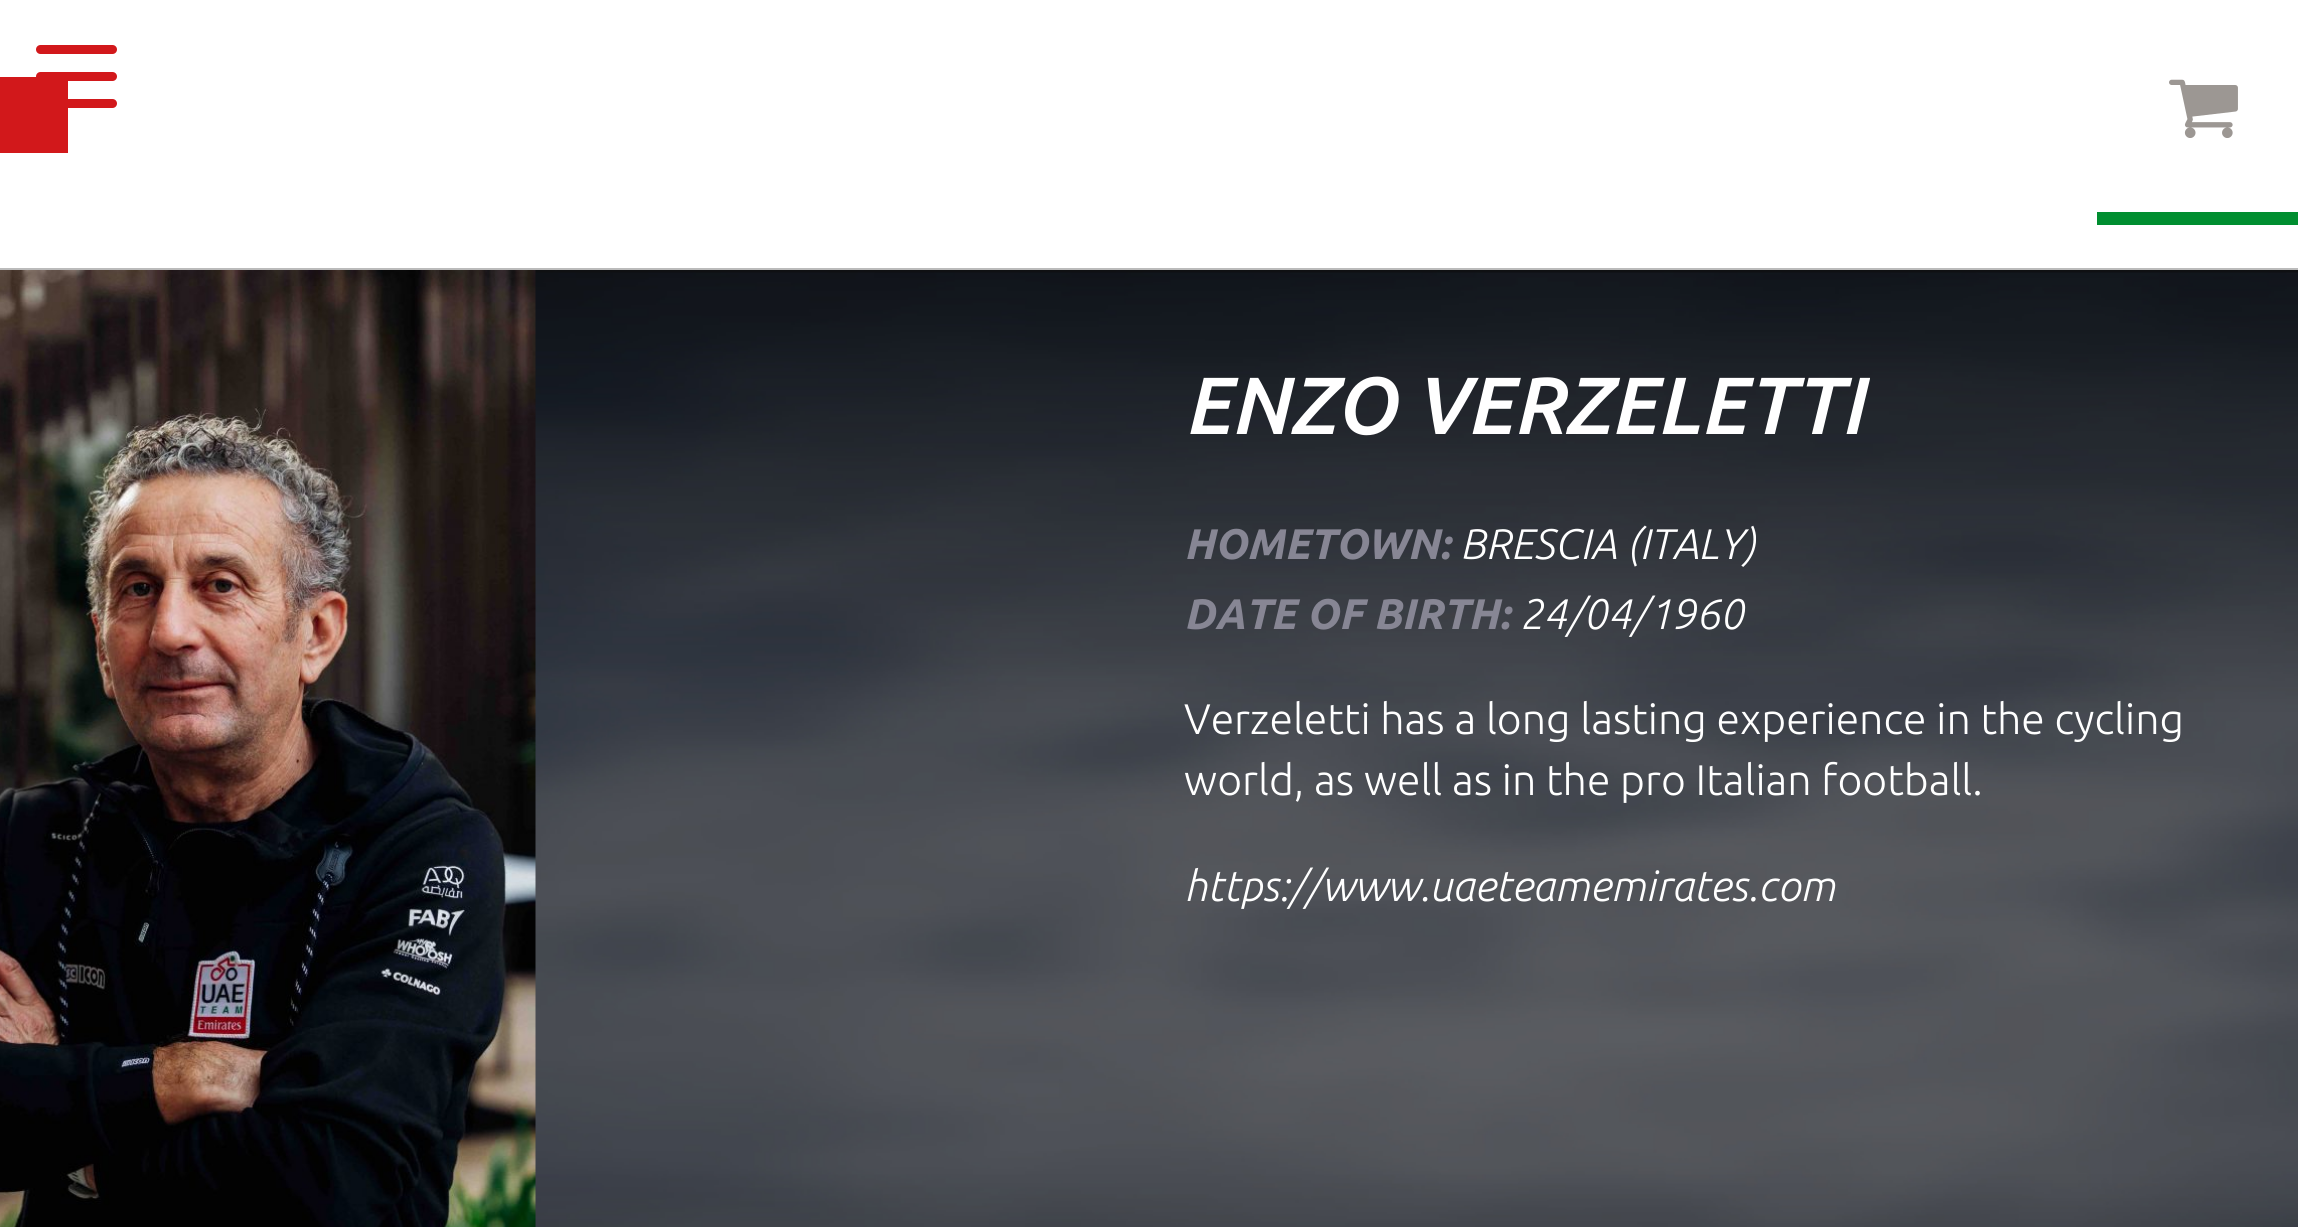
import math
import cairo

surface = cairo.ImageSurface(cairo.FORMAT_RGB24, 2298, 1227)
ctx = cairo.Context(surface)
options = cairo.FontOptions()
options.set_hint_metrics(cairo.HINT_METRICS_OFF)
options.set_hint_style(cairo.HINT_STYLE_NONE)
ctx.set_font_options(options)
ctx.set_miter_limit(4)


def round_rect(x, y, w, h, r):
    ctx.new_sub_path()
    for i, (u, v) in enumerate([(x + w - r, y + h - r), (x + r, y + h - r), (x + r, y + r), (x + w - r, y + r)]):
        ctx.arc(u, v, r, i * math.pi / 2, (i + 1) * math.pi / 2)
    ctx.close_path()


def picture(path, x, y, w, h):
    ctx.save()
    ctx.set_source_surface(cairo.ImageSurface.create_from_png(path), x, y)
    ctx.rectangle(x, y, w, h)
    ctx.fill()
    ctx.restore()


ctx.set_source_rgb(1, 1, 1)
ctx.paint()
ctx.set_source_rgb(0.733, 0.733, 0.733)
ctx.rectangle(0, 268, 2298, 2)
ctx.fill()
ctx.set_source_rgb(0.824, 0.094, 0.106)
round_rect(36, 72, 81, 9, 4.5)
ctx.fill()
round_rect(36, 99, 81, 9, 4.5)
ctx.fill()
ctx.rectangle(0, 77, 68, 76)
ctx.fill()
round_rect(36, 45, 81, 9, 4.5)
ctx.fill()
ctx.set_source_rgb(0, 0.557, 0.188)
ctx.rectangle(2097, 212, 201, 13)
ctx.fill()
picture("img1.png", 2169, 79, 69, 59)
picture("img2.png", 535, 270, 1763, 957)
picture("img3.png", 0, 270, 536, 957)
ctx.select_font_face("Ubuntu Medium", cairo.FONT_SLANT_ITALIC)
ctx.set_font_size(81)
ctx.set_source_rgb(1, 1, 1)
ctx.move_to(1184, 434)
ctx.show_text("ENZO VERZELETTI")
ctx.select_font_face("Ubuntu", cairo.FONT_SLANT_ITALIC, cairo.FONT_WEIGHT_BOLD)
ctx.set_font_size(42.75)
ctx.set_source_rgb(0.529, 0.525, 0.58)
ctx.move_to(1184, 559)
ctx.show_text("HOMETOWN:")
ctx.select_font_face("Ubuntu Light", cairo.FONT_SLANT_ITALIC)
ctx.set_source_rgb(1, 1, 1)
ctx.move_to(1460, 559)
ctx.show_text("BRESCIA (ITALY)")
ctx.select_font_face("Ubuntu", cairo.FONT_SLANT_ITALIC, cairo.FONT_WEIGHT_BOLD)
ctx.set_source_rgb(0.529, 0.525, 0.58)
ctx.move_to(1184, 629)
ctx.show_text("DATE OF BIRTH:")
ctx.select_font_face("Ubuntu Light", cairo.FONT_SLANT_ITALIC)
ctx.set_source_rgb(1, 1, 1)
ctx.move_to(1519, 629)
ctx.show_text("24/04/1960")
ctx.select_font_face("Ubuntu Light")
ctx.move_to(1184, 734)
ctx.show_text("Verzeletti has a long lasting experience in the cycling")
ctx.move_to(1184, 795)
ctx.show_text("world, as well as in the pro Italian football.")
ctx.select_font_face("Ubuntu Light", cairo.FONT_SLANT_ITALIC)
ctx.move_to(1184, 901)
ctx.show_text("https://www.uaeteamemirates.com")
surface.write_to_png("page.png")
